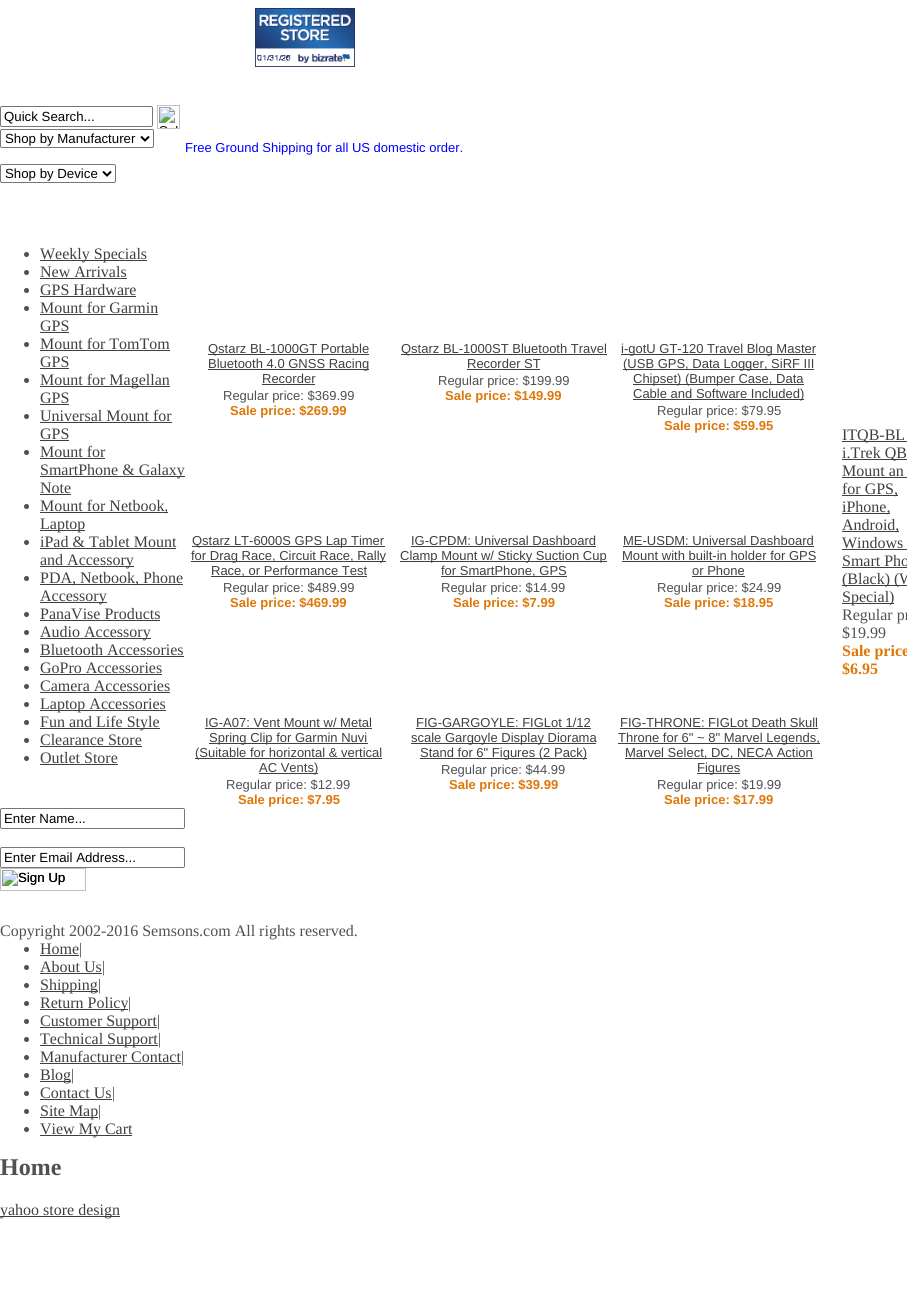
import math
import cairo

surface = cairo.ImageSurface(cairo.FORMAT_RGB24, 907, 1308)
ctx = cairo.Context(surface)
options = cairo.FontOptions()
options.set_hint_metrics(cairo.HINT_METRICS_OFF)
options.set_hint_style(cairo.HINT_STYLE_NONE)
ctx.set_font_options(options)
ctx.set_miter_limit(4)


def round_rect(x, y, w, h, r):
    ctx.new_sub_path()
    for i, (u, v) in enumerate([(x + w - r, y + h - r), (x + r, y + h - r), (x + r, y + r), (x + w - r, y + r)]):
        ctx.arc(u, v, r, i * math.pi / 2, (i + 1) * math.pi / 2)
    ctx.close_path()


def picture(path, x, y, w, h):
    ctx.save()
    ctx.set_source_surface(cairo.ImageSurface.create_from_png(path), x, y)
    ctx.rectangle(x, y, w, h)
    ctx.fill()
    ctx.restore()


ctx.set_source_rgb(1, 1, 1)
ctx.paint()
picture("img1.png", 255, 8, 100, 59)
round_rect(0.5, 106.5, 152, 20, 1.5)
ctx.set_source_rgb(0.463, 0.463, 0.463)
ctx.set_line_width(1)
ctx.stroke()
ctx.select_font_face("Liberation Sans")
ctx.set_font_size(13.25)
ctx.set_source_rgb(0, 0, 0)
ctx.move_to(4, 121)
ctx.show_text("Quick Search...")
picture("img2.png", 157, 105, 23, 24)
round_rect(0.5, 129.5, 153, 18, 1.5)
ctx.set_source_rgb(0.463, 0.463, 0.463)
ctx.stroke()
ctx.new_path()
ctx.move_to(141, 136.5)
ctx.line_to(145, 140.5)
ctx.line_to(149, 136.5)
ctx.set_source_rgb(0, 0, 0)
ctx.set_line_width(2)
ctx.stroke()
ctx.move_to(5, 143)
ctx.show_text("Shop by Manufacturer")
round_rect(0.5, 164.5, 115, 18, 1.5)
ctx.set_source_rgb(0.463, 0.463, 0.463)
ctx.set_line_width(1)
ctx.stroke()
ctx.new_path()
ctx.move_to(103, 171.5)
ctx.line_to(107, 175.5)
ctx.line_to(111, 171.5)
ctx.set_source_rgb(0, 0, 0)
ctx.set_line_width(2)
ctx.stroke()
ctx.move_to(5, 178)
ctx.show_text("Shop by Device")
ctx.set_source_rgb(0.31, 0.314, 0.333)
ctx.new_path()
ctx.arc(26.5, 254.5, 2.5, 0, 2 * math.pi)
ctx.fill()
ctx.set_source_rgb(0.247, 0.247, 0.247)
ctx.rectangle(40, 260, 107, 1)
ctx.fill()
ctx.select_font_face("Liberation Serif")
ctx.set_font_size(16)
ctx.move_to(40, 259)
ctx.show_text("Weekly Specials")
ctx.set_source_rgb(0.31, 0.314, 0.333)
ctx.new_path()
ctx.arc(26.5, 272.5, 2.5, 0, 2 * math.pi)
ctx.fill()
ctx.set_source_rgb(0.247, 0.247, 0.247)
ctx.move_to(40, 277)
ctx.show_text("New Arrivals")
ctx.rectangle(40, 278, 87, 1)
ctx.fill()
ctx.set_source_rgb(0.31, 0.314, 0.333)
ctx.arc(26.5, 290.5, 2.5, 0, 2 * math.pi)
ctx.fill()
ctx.set_source_rgb(0.247, 0.247, 0.247)
ctx.move_to(40, 295)
ctx.show_text("GPS Hardware")
ctx.rectangle(40, 296, 96, 1)
ctx.fill()
ctx.set_source_rgb(0.31, 0.314, 0.333)
ctx.arc(26.5, 308.5, 2.5, 0, 2 * math.pi)
ctx.fill()
ctx.set_source_rgb(0.247, 0.247, 0.247)
ctx.move_to(40, 313)
ctx.show_text("Mount for Garmin")
ctx.rectangle(40, 314, 118, 1)
ctx.fill()
ctx.move_to(40, 331)
ctx.show_text("GPS")
ctx.rectangle(40, 332, 29, 1)
ctx.fill()
ctx.set_source_rgb(0.31, 0.314, 0.333)
ctx.arc(26.5, 344.5, 2.5, 0, 2 * math.pi)
ctx.fill()
ctx.set_source_rgb(0.247, 0.247, 0.247)
ctx.move_to(40, 349)
ctx.show_text("Mount for TomTom")
ctx.rectangle(40, 350, 130, 1)
ctx.fill()
ctx.move_to(40, 367)
ctx.show_text("GPS")
ctx.rectangle(40, 368, 29, 1)
ctx.fill()
ctx.set_source_rgb(0.31, 0.314, 0.333)
ctx.arc(26.5, 380.5, 2.5, 0, 2 * math.pi)
ctx.fill()
ctx.set_source_rgb(0.247, 0.247, 0.247)
ctx.rectangle(40, 386, 130, 1)
ctx.fill()
ctx.move_to(40, 385)
ctx.show_text("Mount for Magellan")
ctx.move_to(40, 403)
ctx.show_text("GPS")
ctx.rectangle(40, 404, 29, 1)
ctx.fill()
ctx.set_source_rgb(0.31, 0.314, 0.333)
ctx.arc(26.5, 416.5, 2.5, 0, 2 * math.pi)
ctx.fill()
ctx.set_source_rgb(0.247, 0.247, 0.247)
ctx.move_to(40, 421)
ctx.show_text("Universal Mount for")
ctx.rectangle(40, 422, 132, 1)
ctx.fill()
ctx.move_to(40, 439)
ctx.show_text("GPS")
ctx.rectangle(40, 440, 29, 1)
ctx.fill()
ctx.set_source_rgb(0.31, 0.314, 0.333)
ctx.arc(26.5, 452.5, 2.5, 0, 2 * math.pi)
ctx.fill()
ctx.set_source_rgb(0.247, 0.247, 0.247)
ctx.move_to(40, 457)
ctx.show_text("Mount for")
ctx.rectangle(40, 458, 65, 1)
ctx.fill()
ctx.rectangle(40, 476, 145, 1)
ctx.fill()
ctx.move_to(40, 475)
ctx.show_text("SmartPhone & Galaxy")
ctx.move_to(40, 493)
ctx.show_text("Note")
ctx.rectangle(40, 494, 31, 1)
ctx.fill()
ctx.set_source_rgb(0.31, 0.314, 0.333)
ctx.arc(26.5, 506.5, 2.5, 0, 2 * math.pi)
ctx.fill()
ctx.set_source_rgb(0.247, 0.247, 0.247)
ctx.rectangle(40, 512, 128, 1)
ctx.fill()
ctx.move_to(40, 511)
ctx.show_text("Mount for Netbook,")
ctx.rectangle(40, 530, 45, 1)
ctx.fill()
ctx.move_to(40, 529)
ctx.show_text("Laptop")
ctx.set_source_rgb(0.31, 0.314, 0.333)
ctx.new_path()
ctx.arc(26.5, 542.5, 2.5, 0, 2 * math.pi)
ctx.fill()
ctx.set_source_rgb(0.247, 0.247, 0.247)
ctx.move_to(40, 547)
ctx.show_text("iPad & Tablet Mount")
ctx.rectangle(40, 548, 136, 1)
ctx.fill()
ctx.rectangle(40, 566, 94, 1)
ctx.fill()
ctx.move_to(40, 565)
ctx.show_text("and Accessory")
ctx.set_source_rgb(0.31, 0.314, 0.333)
ctx.new_path()
ctx.arc(26.5, 578.5, 2.5, 0, 2 * math.pi)
ctx.fill()
ctx.set_source_rgb(0.247, 0.247, 0.247)
ctx.rectangle(40, 584, 143, 1)
ctx.fill()
ctx.move_to(40, 583)
ctx.show_text("PDA, Netbook, Phone")
ctx.rectangle(40, 602, 67, 1)
ctx.fill()
ctx.move_to(40, 601)
ctx.show_text("Accessory")
ctx.set_source_rgb(0.31, 0.314, 0.333)
ctx.new_path()
ctx.arc(26.5, 614.5, 2.5, 0, 2 * math.pi)
ctx.fill()
ctx.set_source_rgb(0.247, 0.247, 0.247)
ctx.move_to(40, 619)
ctx.show_text("PanaVise Products")
ctx.rectangle(40, 620, 120, 1)
ctx.fill()
ctx.set_source_rgb(0.31, 0.314, 0.333)
ctx.arc(26.5, 632.5, 2.5, 0, 2 * math.pi)
ctx.fill()
ctx.set_source_rgb(0.247, 0.247, 0.247)
ctx.rectangle(40, 638, 111, 1)
ctx.fill()
ctx.move_to(40, 637)
ctx.show_text("Audio Accessory")
ctx.set_source_rgb(0.31, 0.314, 0.333)
ctx.new_path()
ctx.arc(26.5, 650.5, 2.5, 0, 2 * math.pi)
ctx.fill()
ctx.set_source_rgb(0.247, 0.247, 0.247)
ctx.move_to(40, 655)
ctx.show_text("Bluetooth Accessories")
ctx.rectangle(40, 656, 144, 1)
ctx.fill()
ctx.set_source_rgb(0.31, 0.314, 0.333)
ctx.arc(26.5, 668.5, 2.5, 0, 2 * math.pi)
ctx.fill()
ctx.set_source_rgb(0.247, 0.247, 0.247)
ctx.move_to(40, 673)
ctx.show_text("GoPro Accessories")
ctx.rectangle(40, 674, 122, 1)
ctx.fill()
ctx.set_source_rgb(0.31, 0.314, 0.333)
ctx.arc(26.5, 686.5, 2.5, 0, 2 * math.pi)
ctx.fill()
ctx.set_source_rgb(0.247, 0.247, 0.247)
ctx.move_to(40, 691)
ctx.show_text("Camera Accessories")
ctx.rectangle(40, 692, 130, 1)
ctx.fill()
ctx.set_source_rgb(0.31, 0.314, 0.333)
ctx.arc(26.5, 704.5, 2.5, 0, 2 * math.pi)
ctx.fill()
ctx.set_source_rgb(0.247, 0.247, 0.247)
ctx.rectangle(40, 710, 126, 1)
ctx.fill()
ctx.move_to(40, 709)
ctx.show_text("Laptop Accessories")
ctx.set_source_rgb(0.31, 0.314, 0.333)
ctx.new_path()
ctx.arc(26.5, 722.5, 2.5, 0, 2 * math.pi)
ctx.fill()
ctx.set_source_rgb(0.247, 0.247, 0.247)
ctx.rectangle(40, 728, 120, 1)
ctx.fill()
ctx.move_to(40, 727)
ctx.show_text("Fun and Life Style")
ctx.set_source_rgb(0.31, 0.314, 0.333)
ctx.new_path()
ctx.arc(26.5, 740.5, 2.5, 0, 2 * math.pi)
ctx.fill()
ctx.set_source_rgb(0.247, 0.247, 0.247)
ctx.move_to(40, 745)
ctx.show_text("Clearance Store")
ctx.rectangle(40, 746, 102, 1)
ctx.fill()
ctx.set_source_rgb(0.31, 0.314, 0.333)
ctx.arc(26.5, 758.5, 2.5, 0, 2 * math.pi)
ctx.fill()
ctx.set_source_rgb(0.247, 0.247, 0.247)
ctx.move_to(40, 763)
ctx.show_text("Outlet Store")
ctx.rectangle(40, 764, 78, 1)
ctx.fill()
round_rect(0.5, 808.5, 184, 20, 1.5)
ctx.set_source_rgb(0.463, 0.463, 0.463)
ctx.set_line_width(1)
ctx.stroke()
ctx.select_font_face("Liberation Sans")
ctx.set_font_size(13.25)
ctx.set_source_rgb(0, 0, 0)
ctx.move_to(4, 823)
ctx.show_text("Enter Name...")
round_rect(0.5, 847.5, 184, 20, 1.5)
ctx.set_source_rgb(0.463, 0.463, 0.463)
ctx.stroke()
ctx.set_source_rgb(0, 0, 0)
ctx.move_to(4, 862)
ctx.show_text("Enter Email Address...")
picture("img3.png", 0, 868, 86, 23)
ctx.move_to(18, 882)
ctx.show_text("Sign Up")
ctx.set_font_size(13)
ctx.set_source_rgb(0, 0, 1)
ctx.move_to(185, 152)
ctx.show_text("Free Ground Shipping for all US domestic order.")
ctx.set_source_rgb(0.247, 0.247, 0.247)
ctx.rectangle(208, 354, 161, 1)
ctx.fill()
ctx.move_to(208, 353)
ctx.show_text("Qstarz BL-1000GT Portable")
ctx.rectangle(208, 369, 161, 1)
ctx.fill()
ctx.move_to(208, 368)
ctx.show_text("Bluetooth 4.0 GNSS Racing")
ctx.move_to(262, 383)
ctx.show_text("Recorder")
ctx.rectangle(262, 384, 53, 1)
ctx.fill()
ctx.set_source_rgb(0.31, 0.314, 0.333)
ctx.move_to(223, 400)
ctx.show_text("Regular price: $369.99")
ctx.select_font_face("Liberation Sans", cairo.FONT_SLANT_NORMAL, cairo.FONT_WEIGHT_BOLD)
ctx.set_source_rgb(0.871, 0.467, 0.031)
ctx.move_to(230, 415)
ctx.show_text("Sale price: $269.99")
ctx.set_source_rgb(0.247, 0.247, 0.247)
ctx.rectangle(401, 354, 206, 1)
ctx.fill()
ctx.select_font_face("Liberation Sans")
ctx.move_to(401, 353)
ctx.show_text("Qstarz BL-1000ST Bluetooth Travel")
ctx.move_to(467, 368)
ctx.show_text("Recorder ST")
ctx.rectangle(467, 369, 73, 1)
ctx.fill()
ctx.set_source_rgb(0.31, 0.314, 0.333)
ctx.move_to(438, 385)
ctx.show_text("Regular price: $199.99")
ctx.select_font_face("Liberation Sans", cairo.FONT_SLANT_NORMAL, cairo.FONT_WEIGHT_BOLD)
ctx.set_source_rgb(0.871, 0.467, 0.031)
ctx.move_to(445, 400)
ctx.show_text("Sale price: $149.99")
ctx.set_source_rgb(0.247, 0.247, 0.247)
ctx.rectangle(621, 354, 195, 1)
ctx.fill()
ctx.select_font_face("Liberation Sans")
ctx.move_to(621, 353)
ctx.show_text("i-gotU GT-120 Travel Blog Master")
ctx.rectangle(623, 369, 191, 1)
ctx.fill()
ctx.move_to(623, 368)
ctx.show_text("(USB GPS, Data Logger, SiRF III")
ctx.rectangle(633, 384, 171, 1)
ctx.fill()
ctx.move_to(633, 383)
ctx.show_text("Chipset) (Bumper Case, Data")
ctx.rectangle(633, 399, 171, 1)
ctx.fill()
ctx.move_to(633, 398)
ctx.show_text("Cable and Software Included)")
ctx.set_source_rgb(0.31, 0.314, 0.333)
ctx.move_to(657, 415)
ctx.show_text("Regular price: $79.95")
ctx.select_font_face("Liberation Sans", cairo.FONT_SLANT_NORMAL, cairo.FONT_WEIGHT_BOLD)
ctx.set_source_rgb(0.871, 0.467, 0.031)
ctx.move_to(664, 430)
ctx.show_text("Sale price: $59.95")
ctx.set_source_rgb(0.247, 0.247, 0.247)
ctx.rectangle(192, 546, 193, 1)
ctx.fill()
ctx.select_font_face("Liberation Sans")
ctx.move_to(192, 545)
ctx.show_text("Qstarz LT-6000S GPS Lap Timer")
ctx.rectangle(191, 561, 195, 1)
ctx.fill()
ctx.move_to(191, 560)
ctx.show_text("for Drag Race, Circuit Race, Rally")
ctx.rectangle(211, 576, 156, 1)
ctx.fill()
ctx.move_to(211, 575)
ctx.show_text("Race, or Performance Test")
ctx.set_source_rgb(0.31, 0.314, 0.333)
ctx.move_to(223, 592)
ctx.show_text("Regular price: $489.99")
ctx.select_font_face("Liberation Sans", cairo.FONT_SLANT_NORMAL, cairo.FONT_WEIGHT_BOLD)
ctx.set_source_rgb(0.871, 0.467, 0.031)
ctx.move_to(230, 607)
ctx.show_text("Sale price: $469.99")
ctx.select_font_face("Liberation Sans")
ctx.set_source_rgb(0.247, 0.247, 0.247)
ctx.move_to(411, 545)
ctx.show_text("IG-CPDM: Universal Dashboard")
ctx.rectangle(411, 546, 185, 1)
ctx.fill()
ctx.rectangle(400, 561, 207, 1)
ctx.fill()
ctx.move_to(400, 560)
ctx.show_text("Clamp Mount w/ Sticky Suction Cup")
ctx.rectangle(441, 576, 126, 1)
ctx.fill()
ctx.move_to(441, 575)
ctx.show_text("for SmartPhone, GPS")
ctx.set_source_rgb(0.31, 0.314, 0.333)
ctx.move_to(441, 592)
ctx.show_text("Regular price: $14.99")
ctx.select_font_face("Liberation Sans", cairo.FONT_SLANT_NORMAL, cairo.FONT_WEIGHT_BOLD)
ctx.set_source_rgb(0.871, 0.467, 0.031)
ctx.move_to(453, 607)
ctx.show_text("Sale price: $7.99")
ctx.select_font_face("Liberation Sans")
ctx.set_source_rgb(0.247, 0.247, 0.247)
ctx.move_to(623, 545)
ctx.show_text("ME-USDM: Universal Dashboard")
ctx.rectangle(623, 546, 191, 1)
ctx.fill()
ctx.move_to(622, 560)
ctx.show_text("Mount with built-in holder for GPS")
ctx.rectangle(622, 561, 194, 1)
ctx.fill()
ctx.move_to(692, 575)
ctx.show_text("or Phone")
ctx.rectangle(692, 576, 53, 1)
ctx.fill()
ctx.set_source_rgb(0.31, 0.314, 0.333)
ctx.move_to(657, 592)
ctx.show_text("Regular price: $24.99")
ctx.select_font_face("Liberation Sans", cairo.FONT_SLANT_NORMAL, cairo.FONT_WEIGHT_BOLD)
ctx.set_source_rgb(0.871, 0.467, 0.031)
ctx.move_to(664, 607)
ctx.show_text("Sale price: $18.95")
ctx.select_font_face("Liberation Sans")
ctx.set_source_rgb(0.247, 0.247, 0.247)
ctx.move_to(205, 727)
ctx.show_text("IG-A07: Vent Mount w/ Metal")
ctx.rectangle(205, 728, 167, 1)
ctx.fill()
ctx.rectangle(209, 743, 159, 1)
ctx.fill()
ctx.move_to(209, 742)
ctx.show_text("Spring Clip for Garmin Nuvi")
ctx.rectangle(195, 758, 187, 1)
ctx.fill()
ctx.move_to(195, 757)
ctx.show_text("(Suitable for horizontal & vertical")
ctx.rectangle(259, 773, 59, 1)
ctx.fill()
ctx.move_to(259, 772)
ctx.show_text("AC Vents)")
ctx.set_source_rgb(0.31, 0.314, 0.333)
ctx.move_to(226, 789)
ctx.show_text("Regular price: $12.99")
ctx.select_font_face("Liberation Sans", cairo.FONT_SLANT_NORMAL, cairo.FONT_WEIGHT_BOLD)
ctx.set_source_rgb(0.871, 0.467, 0.031)
ctx.move_to(238, 804)
ctx.show_text("Sale price: $7.95")
ctx.select_font_face("Liberation Sans")
ctx.set_source_rgb(0.247, 0.247, 0.247)
ctx.move_to(416, 727)
ctx.show_text("FIG-GARGOYLE: FIGLot 1/12")
ctx.rectangle(416, 728, 175, 1)
ctx.fill()
ctx.rectangle(411, 743, 185, 1)
ctx.fill()
ctx.move_to(411, 742)
ctx.show_text("scale Gargoyle Display Diorama")
ctx.rectangle(420, 758, 167, 1)
ctx.fill()
ctx.move_to(420, 757)
ctx.show_text("Stand for 6\" Figures (2 Pack)")
ctx.set_source_rgb(0.31, 0.314, 0.333)
ctx.move_to(441, 774)
ctx.show_text("Regular price: $44.99")
ctx.select_font_face("Liberation Sans", cairo.FONT_SLANT_NORMAL, cairo.FONT_WEIGHT_BOLD)
ctx.set_source_rgb(0.871, 0.467, 0.031)
ctx.move_to(449, 789)
ctx.show_text("Sale price: $39.99")
ctx.select_font_face("Liberation Sans")
ctx.set_source_rgb(0.247, 0.247, 0.247)
ctx.move_to(620, 727)
ctx.show_text("FIG-THRONE: FIGLot Death Skull")
ctx.rectangle(620, 728, 198, 1)
ctx.fill()
ctx.rectangle(618, 743, 202, 1)
ctx.fill()
ctx.move_to(618, 742)
ctx.show_text("Throne for 6\" ~ 8\" Marvel Legends,")
ctx.rectangle(625, 758, 188, 1)
ctx.fill()
ctx.move_to(625, 757)
ctx.show_text("Marvel Select, DC, NECA Action")
ctx.rectangle(697, 773, 43, 1)
ctx.fill()
ctx.move_to(697, 772)
ctx.show_text("Figures")
ctx.set_source_rgb(0.31, 0.314, 0.333)
ctx.move_to(657, 789)
ctx.show_text("Regular price: $19.99")
ctx.select_font_face("Liberation Sans", cairo.FONT_SLANT_NORMAL, cairo.FONT_WEIGHT_BOLD)
ctx.set_source_rgb(0.871, 0.467, 0.031)
ctx.move_to(664, 804)
ctx.show_text("Sale price: $17.99")
ctx.set_source_rgb(0.247, 0.247, 0.247)
ctx.rectangle(842, 441, 65, 1)
ctx.fill()
ctx.select_font_face("Liberation Serif")
ctx.set_font_size(16)
ctx.move_to(842, 440)
ctx.show_text("ITQB-BL")
ctx.rectangle(842, 459, 65, 1)
ctx.fill()
ctx.move_to(842, 458)
ctx.show_text("i.Trek QB")
ctx.move_to(842, 476)
ctx.show_text("Mount an")
ctx.rectangle(842, 477, 65, 1)
ctx.fill()
ctx.rectangle(842, 495, 56, 1)
ctx.fill()
ctx.move_to(842, 494)
ctx.show_text("for GPS,")
ctx.rectangle(842, 513, 48, 1)
ctx.fill()
ctx.move_to(842, 512)
ctx.show_text("iPhone,")
ctx.rectangle(842, 531, 57, 1)
ctx.fill()
ctx.move_to(842, 530)
ctx.show_text("Android,")
ctx.move_to(842, 548)
ctx.show_text("Windows")
ctx.rectangle(842, 549, 65, 1)
ctx.fill()
ctx.move_to(842, 566)
ctx.show_text("Smart Pho")
ctx.rectangle(842, 567, 65, 1)
ctx.fill()
ctx.rectangle(842, 585, 65, 1)
ctx.fill()
ctx.move_to(842, 584)
ctx.show_text("(Black) (W")
ctx.rectangle(842, 603, 52, 1)
ctx.fill()
ctx.move_to(842, 602)
ctx.show_text("Special)")
ctx.set_source_rgb(0.31, 0.314, 0.333)
ctx.move_to(842, 620)
ctx.show_text("Regular pr")
ctx.move_to(842, 638)
ctx.show_text("$19.99")
ctx.select_font_face("Liberation Serif", cairo.FONT_SLANT_NORMAL, cairo.FONT_WEIGHT_BOLD)
ctx.set_source_rgb(0.871, 0.467, 0.031)
ctx.move_to(842, 656)
ctx.show_text("Sale price")
ctx.move_to(842, 674)
ctx.show_text("$6.95")
ctx.select_font_face("Liberation Serif")
ctx.set_source_rgb(0.31, 0.314, 0.333)
ctx.move_to(0, 936)
ctx.show_text("Copyright 2002-2016 Semsons.com All rights reserved.")
ctx.new_path()
ctx.arc(26.5, 949.5, 2.5, 0, 2 * math.pi)
ctx.fill()
ctx.set_source_rgb(0.247, 0.247, 0.247)
ctx.move_to(40, 954)
ctx.show_text("Home")
ctx.rectangle(40, 955, 39, 1)
ctx.fill()
ctx.set_source_rgb(0.31, 0.314, 0.333)
ctx.move_to(79, 954)
ctx.show_text("|")
ctx.new_path()
ctx.arc(26.5, 967.5, 2.5, 0, 2 * math.pi)
ctx.fill()
ctx.set_source_rgb(0.247, 0.247, 0.247)
ctx.move_to(40, 972)
ctx.show_text("About Us")
ctx.rectangle(40, 973, 62, 1)
ctx.fill()
ctx.set_source_rgb(0.31, 0.314, 0.333)
ctx.move_to(102, 972)
ctx.show_text("|")
ctx.new_path()
ctx.arc(26.5, 985.5, 2.5, 0, 2 * math.pi)
ctx.fill()
ctx.set_source_rgb(0.247, 0.247, 0.247)
ctx.rectangle(40, 991, 58, 1)
ctx.fill()
ctx.move_to(40, 990)
ctx.show_text("Shipping")
ctx.set_source_rgb(0.31, 0.314, 0.333)
ctx.move_to(98, 990)
ctx.show_text("|")
ctx.new_path()
ctx.arc(26.5, 1003.5, 2.5, 0, 2 * math.pi)
ctx.fill()
ctx.set_source_rgb(0.247, 0.247, 0.247)
ctx.rectangle(40, 1009, 88, 1)
ctx.fill()
ctx.move_to(40, 1008)
ctx.show_text("Return Policy")
ctx.set_source_rgb(0.31, 0.314, 0.333)
ctx.move_to(128, 1008)
ctx.show_text("|")
ctx.new_path()
ctx.arc(26.5, 1021.5, 2.5, 0, 2 * math.pi)
ctx.fill()
ctx.set_source_rgb(0.247, 0.247, 0.247)
ctx.rectangle(40, 1027, 117, 1)
ctx.fill()
ctx.move_to(40, 1026)
ctx.show_text("Customer Support")
ctx.set_source_rgb(0.31, 0.314, 0.333)
ctx.move_to(157, 1026)
ctx.show_text("|")
ctx.new_path()
ctx.arc(26.5, 1039.5, 2.5, 0, 2 * math.pi)
ctx.fill()
ctx.set_source_rgb(0.247, 0.247, 0.247)
ctx.rectangle(40, 1045, 118, 1)
ctx.fill()
ctx.move_to(40, 1044)
ctx.show_text("Technical Support")
ctx.set_source_rgb(0.31, 0.314, 0.333)
ctx.move_to(158, 1044)
ctx.show_text("|")
ctx.new_path()
ctx.arc(26.5, 1057.5, 2.5, 0, 2 * math.pi)
ctx.fill()
ctx.set_source_rgb(0.247, 0.247, 0.247)
ctx.move_to(40, 1062)
ctx.show_text("Manufacturer Contact")
ctx.rectangle(40, 1063, 141, 1)
ctx.fill()
ctx.set_source_rgb(0.31, 0.314, 0.333)
ctx.move_to(181, 1062)
ctx.show_text("|")
ctx.new_path()
ctx.arc(26.5, 1075.5, 2.5, 0, 2 * math.pi)
ctx.fill()
ctx.set_source_rgb(0.247, 0.247, 0.247)
ctx.rectangle(40, 1081, 31, 1)
ctx.fill()
ctx.move_to(40, 1080)
ctx.show_text("Blog")
ctx.set_source_rgb(0.31, 0.314, 0.333)
ctx.move_to(71, 1080)
ctx.show_text("|")
ctx.new_path()
ctx.arc(26.5, 1093.5, 2.5, 0, 2 * math.pi)
ctx.fill()
ctx.set_source_rgb(0.247, 0.247, 0.247)
ctx.move_to(40, 1098)
ctx.show_text("Contact Us")
ctx.rectangle(40, 1099, 72, 1)
ctx.fill()
ctx.set_source_rgb(0.31, 0.314, 0.333)
ctx.move_to(112, 1098)
ctx.show_text("|")
ctx.new_path()
ctx.arc(26.5, 1111.5, 2.5, 0, 2 * math.pi)
ctx.fill()
ctx.set_source_rgb(0.247, 0.247, 0.247)
ctx.rectangle(40, 1117, 58, 1)
ctx.fill()
ctx.move_to(40, 1116)
ctx.show_text("Site Map")
ctx.set_source_rgb(0.31, 0.314, 0.333)
ctx.move_to(98, 1116)
ctx.show_text("|")
ctx.new_path()
ctx.arc(26.5, 1129.5, 2.5, 0, 2 * math.pi)
ctx.fill()
ctx.set_source_rgb(0.247, 0.247, 0.247)
ctx.rectangle(40, 1135, 92, 1)
ctx.fill()
ctx.move_to(40, 1134)
ctx.show_text("View My Cart")
ctx.select_font_face("Liberation Serif", cairo.FONT_SLANT_NORMAL, cairo.FONT_WEIGHT_BOLD)
ctx.set_font_size(24)
ctx.set_source_rgb(0.31, 0.314, 0.333)
ctx.move_to(0, 1175)
ctx.show_text("Home")
ctx.set_source_rgb(0.247, 0.247, 0.247)
ctx.rectangle(0, 1216, 120, 1)
ctx.fill()
ctx.select_font_face("Liberation Serif")
ctx.set_font_size(16)
ctx.move_to(0, 1215)
ctx.show_text("yahoo store design")
surface.write_to_png("page.png")
